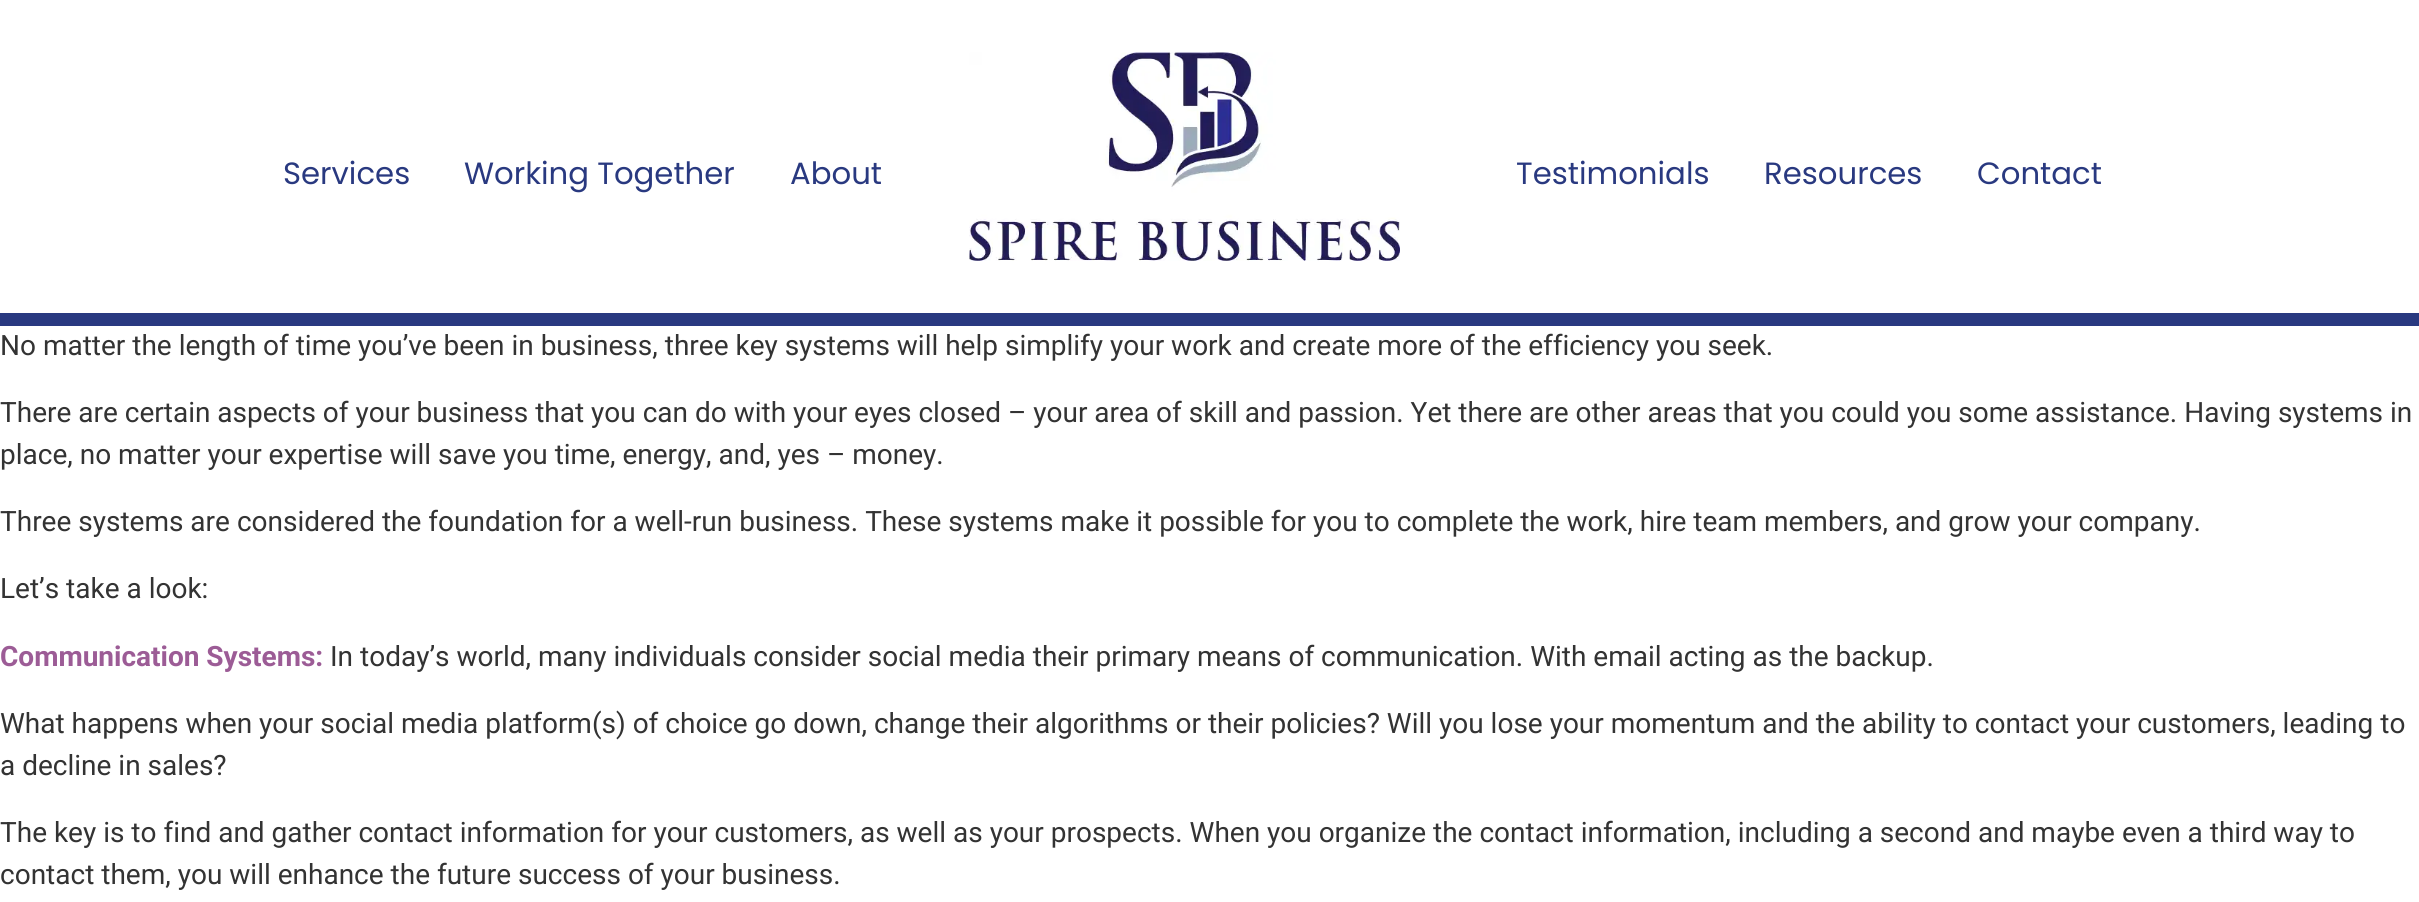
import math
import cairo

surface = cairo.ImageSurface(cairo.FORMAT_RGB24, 2419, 902)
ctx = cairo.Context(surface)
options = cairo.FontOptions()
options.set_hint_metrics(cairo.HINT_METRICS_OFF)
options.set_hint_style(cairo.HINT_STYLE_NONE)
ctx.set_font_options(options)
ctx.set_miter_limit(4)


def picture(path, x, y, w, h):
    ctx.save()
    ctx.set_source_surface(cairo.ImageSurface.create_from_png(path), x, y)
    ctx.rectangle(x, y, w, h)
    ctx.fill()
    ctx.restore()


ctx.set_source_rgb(1, 1, 1)
ctx.paint()
ctx.set_source_rgb(0.161, 0.224, 0.502)
ctx.rectangle(0, 313, 2419, 13)
ctx.fill()
ctx.select_font_face("Poppins")
ctx.set_font_size(30.75)
ctx.move_to(283, 184)
ctx.show_text("Services")
ctx.move_to(464, 184)
ctx.show_text("Working Together")
ctx.move_to(790, 184)
ctx.show_text("About")
picture("img1.png", 969, 52, 431, 209)
ctx.move_to(1516, 184)
ctx.show_text("Testimonials")
ctx.move_to(1764, 184)
ctx.show_text("Resources")
ctx.move_to(1977, 184)
ctx.show_text("Contact")
ctx.select_font_face("Roboto")
ctx.set_font_size(28)
ctx.set_source_rgb(0.2, 0.2, 0.2)
ctx.move_to(0, 355)
ctx.show_text("No matter the length of time you’ve been in business, three key systems will help simplify your work and create more of the efficiency you seek.")
ctx.move_to(0, 422)
ctx.show_text("There are certain aspects of your business that you can do with your eyes closed – your area of skill and passion. Yet there are other areas that you could you some assistance. Having systems in")
ctx.move_to(0, 464)
ctx.show_text("place, no matter your expertise will save you time, energy, and, yes – money.")
ctx.move_to(0, 531)
ctx.show_text("Three systems are considered the foundation for a well-run business. These systems make it possible for you to complete the work, hire team members, and grow your company.")
ctx.move_to(0, 598)
ctx.show_text("Let’s take a look:")
ctx.select_font_face("Roboto", cairo.FONT_SLANT_NORMAL, cairo.FONT_WEIGHT_BOLD)
ctx.set_source_rgb(0.612, 0.361, 0.588)
ctx.move_to(0, 666)
ctx.show_text("Communication Systems:")
ctx.select_font_face("Roboto")
ctx.set_source_rgb(0.2, 0.2, 0.2)
ctx.move_to(330, 666)
ctx.show_text("In today’s world, many individuals consider social media their primary means of communication. With email acting as the backup.")
ctx.move_to(0, 733)
ctx.show_text("What happens when your social media platform(s) of choice go down, change their algorithms or their policies? Will you lose your momentum and the ability to contact your customers, leading to")
ctx.move_to(0, 775)
ctx.show_text("a decline in sales?")
ctx.move_to(0, 842)
ctx.show_text("The key is to find and gather contact information for your customers, as well as your prospects. When you organize the contact information, including a second and maybe even a third way to")
ctx.move_to(0, 884)
ctx.show_text("contact them, you will enhance the future success of your business.")
surface.write_to_png("page.png")
